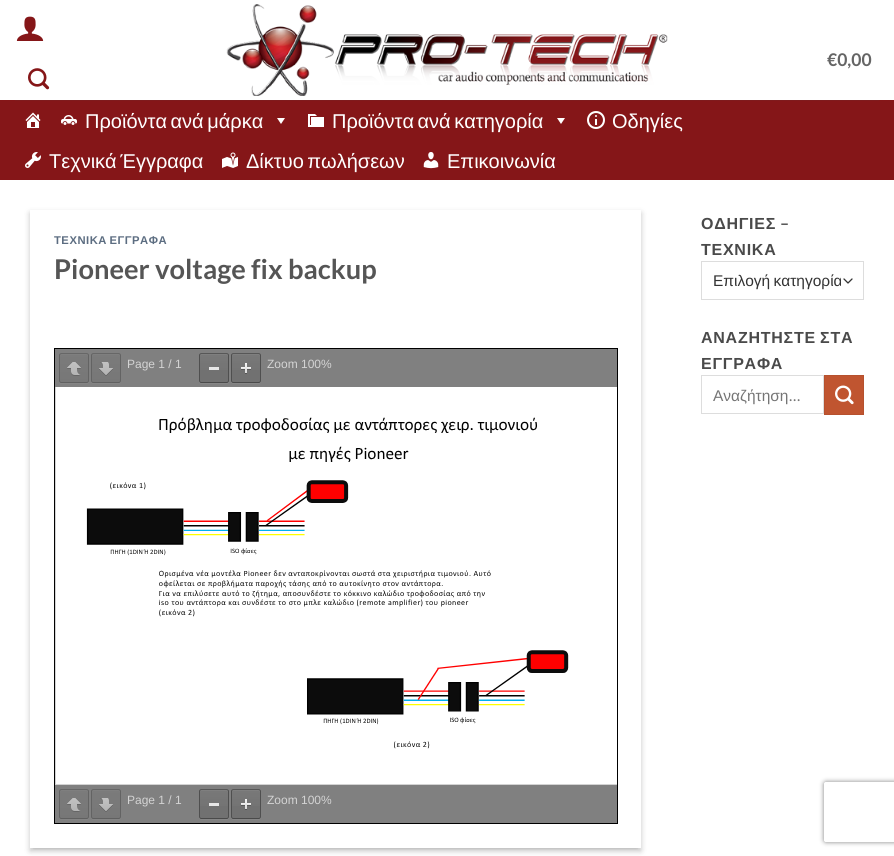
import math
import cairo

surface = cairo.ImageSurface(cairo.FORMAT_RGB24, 894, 856)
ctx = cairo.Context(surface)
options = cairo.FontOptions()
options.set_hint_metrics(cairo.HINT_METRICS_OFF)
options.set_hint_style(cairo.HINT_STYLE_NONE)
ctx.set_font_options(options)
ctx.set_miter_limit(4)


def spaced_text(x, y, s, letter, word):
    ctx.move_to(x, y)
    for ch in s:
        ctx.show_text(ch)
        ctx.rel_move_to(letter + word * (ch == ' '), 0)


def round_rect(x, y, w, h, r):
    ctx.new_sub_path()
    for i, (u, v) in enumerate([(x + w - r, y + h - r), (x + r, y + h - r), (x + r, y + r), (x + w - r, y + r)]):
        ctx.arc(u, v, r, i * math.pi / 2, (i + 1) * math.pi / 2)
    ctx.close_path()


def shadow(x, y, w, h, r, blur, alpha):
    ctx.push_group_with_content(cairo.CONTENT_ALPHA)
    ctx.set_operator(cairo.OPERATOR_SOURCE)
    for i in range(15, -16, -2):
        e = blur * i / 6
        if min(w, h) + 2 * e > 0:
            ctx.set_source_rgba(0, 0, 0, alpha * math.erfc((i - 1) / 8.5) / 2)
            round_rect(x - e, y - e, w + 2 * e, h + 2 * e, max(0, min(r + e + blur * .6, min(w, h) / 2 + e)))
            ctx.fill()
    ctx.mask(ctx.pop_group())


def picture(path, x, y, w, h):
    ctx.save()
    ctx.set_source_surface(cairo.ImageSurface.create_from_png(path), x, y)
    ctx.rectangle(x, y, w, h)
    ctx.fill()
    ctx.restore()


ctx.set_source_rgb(1, 1, 1)
ctx.paint()
picture("img1.png", 16, 16, 28, 25)
picture("img2.png", 28, 68, 22, 22)
picture("img3.png", 226, 4, 442, 92)
ctx.select_font_face("Lato", cairo.FONT_SLANT_NORMAL, cairo.FONT_WEIGHT_BOLD)
ctx.set_font_size(17.5)
ctx.set_source_rgb(0.396, 0.396, 0.396)
ctx.move_to(827, 66)
ctx.show_text("€0,00")
ctx.set_source_rgb(0.522, 0.086, 0.094)
ctx.rectangle(0, 100, 894, 80)
ctx.fill()
ctx.set_source_rgb(0.498, 0.106, 0.114)
ctx.rectangle(15, 100, 864, 1)
ctx.fill()
picture("img4.png", 25, 112, 16, 16)
picture("img5.png", 61, 115, 16, 10)
ctx.select_font_face("Liberation Sans")
ctx.set_font_size(20)
ctx.set_source_rgb(1, 1, 1)
spaced_text(85, 128, "Προϊόντα ανά μάρκα", 0, -2)
ctx.new_path()
ctx.move_to(285, 118)
ctx.line_to(281, 124)
ctx.line_to(277, 118)
ctx.close_path()
ctx.fill()
picture("img6.png", 308, 114, 16, 13)
spaced_text(332, 128, "Προϊόντα ανά κατηγορία", 0, -2)
ctx.new_path()
ctx.move_to(565, 118)
ctx.line_to(561, 124)
ctx.line_to(557, 118)
ctx.close_path()
ctx.fill()
picture("img7.png", 587, 111, 18, 18)
ctx.move_to(612, 128)
ctx.show_text("Οδηγίες")
picture("img8.png", 25, 152, 16, 16)
spaced_text(49, 168, "Τεχνικά Έγγραφα", 0, -2)
picture("img9.png", 222, 152, 16, 16)
spaced_text(246, 168, "Δίκτυο πωλήσεων", 0, -2)
picture("img10.png", 423, 152, 16, 17)
ctx.move_to(447, 168)
ctx.show_text("Επικοινωνία")
ctx.save()
ctx.set_fill_rule(cairo.FILL_RULE_EVEN_ODD)
ctx.new_path()
ctx.move_to(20, 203)
ctx.line_to(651, 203)
ctx.line_to(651, 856)
ctx.line_to(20, 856)
ctx.close_path()
ctx.move_to(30, 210)
ctx.line_to(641, 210)
ctx.line_to(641, 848)
ctx.line_to(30, 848)
ctx.close_path()
ctx.clip()
ctx.set_source_rgb(0, 0, 0)
shadow(30, 213, 611, 638, 0, 3, 0.23)
ctx.restore()
ctx.save()
ctx.rectangle(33, 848, 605, 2)
ctx.clip()
ctx.set_source_rgb(0, 0, 0)
shadow(34, 217, 603, 630, 0, 3, 0.16)
ctx.restore()
ctx.select_font_face("Liberation Sans", cairo.FONT_SLANT_NORMAL, cairo.FONT_WEIGHT_BOLD)
ctx.set_font_size(11.25)
ctx.set_source_rgb(0.361, 0.427, 0.506)
spaced_text(54, 244, "ΤΕΧΝΙΚΑ ΕΓΓΡΑΦΑ", 0.5, -1)
ctx.select_font_face("Lato", cairo.FONT_SLANT_NORMAL, cairo.FONT_WEIGHT_BOLD)
ctx.set_font_size(27.25)
ctx.set_source_rgb(0.333, 0.333, 0.333)
ctx.move_to(54, 279)
ctx.show_text("Pioneer voltage fix backup")
ctx.set_source_rgb(0.827, 0.827, 0.827)
ctx.rectangle(55, 387, 562, 398)
ctx.fill()
ctx.rectangle(54.5, 348.5, 563, 475)
ctx.set_source_rgb(0, 0, 0)
ctx.set_line_width(1)
ctx.stroke()
ctx.set_source_rgb(0.502, 0.502, 0.502)
ctx.rectangle(55, 349, 562, 38)
ctx.fill()
ctx.set_source_rgb(0.518, 0.518, 0.518)
ctx.new_path()
ctx.move_to(59, 381)
ctx.curve_to(59, 385, 61.5, 384, 65.5, 384)
ctx.line_to(82.5, 384)
ctx.curve_to(86.5, 384, 89, 385, 89, 381)
ctx.curve_to(89, 382, 88, 383, 87, 383)
ctx.line_to(61, 383)
ctx.curve_to(60, 383, 59, 382, 59, 381)
ctx.close_path()
ctx.fill()
gradient = cairo.LinearGradient(74, 354, 74, 382)
gradient.add_color_stop_rgba(0, 0.482, 0.482, 0.482, 1)
gradient.add_color_stop_rgba(1, 0.467, 0.467, 0.467, 1)
ctx.set_source(gradient)
round_rect(60, 354, 28, 28, 1)
ctx.fill()
ctx.set_source_rgb(0.498, 0.498, 0.498)
ctx.new_path()
ctx.move_to(61, 355)
ctx.line_to(87, 355)
ctx.line_to(88, 356)
ctx.curve_to(88, 353, 85.5, 354, 82.5, 354)
ctx.line_to(65.5, 354)
ctx.curve_to(61, 354, 60, 353, 60, 356.5)
ctx.curve_to(60, 355.5, 60.5, 355, 61, 355)
ctx.close_path()
ctx.fill()
ctx.new_path()
ctx.move_to(60, 354)
ctx.line_to(61, 353.5)
ctx.line_to(87, 353.5)
ctx.line_to(88, 354)
ctx.set_source_rgb(0.404, 0.404, 0.404)
ctx.stroke()
ctx.new_path()
ctx.move_to(88, 354)
ctx.line_to(88.5, 355)
ctx.line_to(88.5, 381)
ctx.line_to(88, 382)
ctx.set_source_rgb(0.388, 0.388, 0.388)
ctx.stroke()
ctx.new_path()
ctx.move_to(88, 382)
ctx.line_to(87, 382.5)
ctx.line_to(61, 382.5)
ctx.line_to(60, 382)
ctx.set_source_rgb(0.376, 0.376, 0.376)
ctx.stroke()
ctx.new_path()
ctx.move_to(60, 382)
ctx.line_to(59.5, 381)
ctx.line_to(59.5, 355)
ctx.line_to(60, 354)
ctx.set_source_rgb(0.388, 0.388, 0.388)
ctx.stroke()
picture("img11.png", 67, 362, 14, 14)
ctx.set_source_rgb(0.518, 0.518, 0.518)
ctx.new_path()
ctx.move_to(91, 381)
ctx.curve_to(91, 385, 93.5, 384, 97.5, 384)
ctx.line_to(114.5, 384)
ctx.curve_to(118.5, 384, 121, 385, 121, 381)
ctx.curve_to(121, 382, 120, 383, 119, 383)
ctx.line_to(93, 383)
ctx.curve_to(92, 383, 91, 382, 91, 381)
ctx.close_path()
ctx.fill()
gradient = cairo.LinearGradient(106, 354, 106, 382)
gradient.add_color_stop_rgba(0, 0.482, 0.482, 0.482, 1)
gradient.add_color_stop_rgba(1, 0.467, 0.467, 0.467, 1)
ctx.set_source(gradient)
round_rect(92, 354, 28, 28, 1)
ctx.fill()
ctx.set_source_rgb(0.498, 0.498, 0.498)
ctx.new_path()
ctx.move_to(93, 355)
ctx.line_to(119, 355)
ctx.line_to(120, 356)
ctx.curve_to(120, 353, 117.5, 354, 114.5, 354)
ctx.line_to(97.5, 354)
ctx.curve_to(93, 354, 92, 353, 92, 356.5)
ctx.curve_to(92, 355.5, 92.5, 355, 93, 355)
ctx.close_path()
ctx.fill()
ctx.new_path()
ctx.move_to(92, 354)
ctx.line_to(93, 353.5)
ctx.line_to(119, 353.5)
ctx.line_to(120, 354)
ctx.set_source_rgb(0.404, 0.404, 0.404)
ctx.stroke()
ctx.new_path()
ctx.move_to(120, 354)
ctx.line_to(120.5, 355)
ctx.line_to(120.5, 381)
ctx.line_to(120, 382)
ctx.set_source_rgb(0.388, 0.388, 0.388)
ctx.stroke()
ctx.new_path()
ctx.move_to(120, 382)
ctx.line_to(119, 382.5)
ctx.line_to(93, 382.5)
ctx.line_to(92, 382)
ctx.set_source_rgb(0.376, 0.376, 0.376)
ctx.stroke()
ctx.new_path()
ctx.move_to(92, 382)
ctx.line_to(91.5, 381)
ctx.line_to(91.5, 355)
ctx.line_to(92, 354)
ctx.set_source_rgb(0.388, 0.388, 0.388)
ctx.stroke()
picture("img12.png", 99, 362, 14, 14)
ctx.select_font_face("Liberation Sans")
ctx.set_font_size(12)
ctx.set_source_rgb(0.827, 0.827, 0.827)
ctx.move_to(127, 368)
ctx.show_text("Page 1 / 1")
ctx.set_source_rgb(0.525, 0.525, 0.525)
ctx.new_path()
ctx.move_to(199, 381)
ctx.curve_to(199, 385, 201.5, 384, 205.5, 384)
ctx.line_to(222.5, 384)
ctx.curve_to(226.5, 384, 229, 385, 229, 381)
ctx.curve_to(229, 382, 228, 383, 227, 383)
ctx.line_to(201, 383)
ctx.curve_to(200, 383, 199, 382, 199, 381)
ctx.close_path()
ctx.fill()
ctx.set_source_rgb(0.443, 0.443, 0.443)
round_rect(200, 354, 28, 28, 1)
ctx.fill()
gradient = cairo.LinearGradient(214, 354, 214, 382)
gradient.add_color_stop_rgba(0, 1, 1, 1, 0.05)
gradient.add_color_stop_rgba(1, 1, 1, 1, 0)
ctx.set_source(gradient)
ctx.rectangle(200, 354, 28, 16)
ctx.fill()
ctx.set_source_rgb(0.498, 0.498, 0.498)
ctx.new_path()
ctx.move_to(201, 355)
ctx.line_to(227, 355)
ctx.line_to(228, 356)
ctx.curve_to(228, 353, 225.5, 354, 222.5, 354)
ctx.line_to(205.5, 354)
ctx.curve_to(201, 354, 200, 353, 200, 356.5)
ctx.curve_to(200, 355.5, 200.5, 355, 201, 355)
ctx.close_path()
ctx.fill()
ctx.new_path()
ctx.move_to(200, 354)
ctx.line_to(201, 353.5)
ctx.line_to(227, 353.5)
ctx.line_to(228, 354)
ctx.set_source_rgb(0.341, 0.341, 0.341)
ctx.stroke()
ctx.new_path()
ctx.move_to(228, 354)
ctx.line_to(228.5, 355)
ctx.line_to(228.5, 381)
ctx.line_to(228, 382)
ctx.set_source_rgb(0.31, 0.31, 0.31)
ctx.stroke()
ctx.new_path()
ctx.move_to(228, 382)
ctx.line_to(227, 382.5)
ctx.line_to(201, 382.5)
ctx.line_to(200, 382)
ctx.set_source_rgb(0.29, 0.29, 0.29)
ctx.stroke()
ctx.new_path()
ctx.move_to(200, 382)
ctx.line_to(199.5, 381)
ctx.line_to(199.5, 355)
ctx.line_to(200, 354)
ctx.set_source_rgb(0.31, 0.31, 0.31)
ctx.stroke()
ctx.set_source_rgb(0.902, 0.902, 0.902)
ctx.rectangle(209, 367, 10, 3)
ctx.fill()
ctx.set_source_rgb(0.525, 0.525, 0.525)
ctx.new_path()
ctx.move_to(231, 381)
ctx.curve_to(231, 385, 233.5, 384, 237.5, 384)
ctx.line_to(254.5, 384)
ctx.curve_to(258.5, 384, 261, 385, 261, 381)
ctx.curve_to(261, 382, 260, 383, 259, 383)
ctx.line_to(233, 383)
ctx.curve_to(232, 383, 231, 382, 231, 381)
ctx.close_path()
ctx.fill()
ctx.set_source_rgb(0.443, 0.443, 0.443)
round_rect(232, 354, 28, 28, 1)
ctx.fill()
gradient = cairo.LinearGradient(246, 354, 246, 382)
gradient.add_color_stop_rgba(0, 1, 1, 1, 0.05)
gradient.add_color_stop_rgba(1, 1, 1, 1, 0)
ctx.set_source(gradient)
ctx.rectangle(232, 354, 28, 16)
ctx.fill()
ctx.set_source_rgb(0.498, 0.498, 0.498)
ctx.new_path()
ctx.move_to(233, 355)
ctx.line_to(259, 355)
ctx.line_to(260, 356)
ctx.curve_to(260, 353, 257.5, 354, 254.5, 354)
ctx.line_to(237.5, 354)
ctx.curve_to(233, 354, 232, 353, 232, 356.5)
ctx.curve_to(232, 355.5, 232.5, 355, 233, 355)
ctx.close_path()
ctx.fill()
ctx.new_path()
ctx.move_to(232, 354)
ctx.line_to(233, 353.5)
ctx.line_to(259, 353.5)
ctx.line_to(260, 354)
ctx.set_source_rgb(0.341, 0.341, 0.341)
ctx.stroke()
ctx.new_path()
ctx.move_to(260, 354)
ctx.line_to(260.5, 355)
ctx.line_to(260.5, 381)
ctx.line_to(260, 382)
ctx.set_source_rgb(0.31, 0.31, 0.31)
ctx.stroke()
ctx.new_path()
ctx.move_to(260, 382)
ctx.line_to(259, 382.5)
ctx.line_to(233, 382.5)
ctx.line_to(232, 382)
ctx.set_source_rgb(0.29, 0.29, 0.29)
ctx.stroke()
ctx.new_path()
ctx.move_to(232, 382)
ctx.line_to(231.5, 381)
ctx.line_to(231.5, 355)
ctx.line_to(232, 354)
ctx.set_source_rgb(0.31, 0.31, 0.31)
ctx.stroke()
picture("img13.png", 241, 363, 10, 11)
ctx.set_source_rgb(0.827, 0.827, 0.827)
ctx.move_to(267, 368)
ctx.show_text("Zoom 100%")
ctx.set_source_rgb(1, 1, 1)
ctx.rectangle(56, 387, 561, 397)
ctx.fill()
picture("img14.png", 86, 417, 483, 332)
ctx.set_source_rgb(0.502, 0.502, 0.502)
ctx.rectangle(55, 785, 562, 38)
ctx.fill()
ctx.set_source_rgb(0.518, 0.518, 0.518)
ctx.new_path()
ctx.move_to(59, 817)
ctx.curve_to(59, 821, 61.5, 820, 65.5, 820)
ctx.line_to(82.5, 820)
ctx.curve_to(86.5, 820, 89, 821, 89, 817)
ctx.curve_to(89, 818, 88, 819, 87, 819)
ctx.line_to(61, 819)
ctx.curve_to(60, 819, 59, 818, 59, 817)
ctx.close_path()
ctx.fill()
gradient = cairo.LinearGradient(74, 790, 74, 818)
gradient.add_color_stop_rgba(0, 0.482, 0.482, 0.482, 1)
gradient.add_color_stop_rgba(1, 0.467, 0.467, 0.467, 1)
ctx.set_source(gradient)
round_rect(60, 790, 28, 28, 1)
ctx.fill()
ctx.set_source_rgb(0.498, 0.498, 0.498)
ctx.new_path()
ctx.move_to(61, 791)
ctx.line_to(87, 791)
ctx.line_to(88, 792)
ctx.curve_to(88, 789, 85.5, 790, 82.5, 790)
ctx.line_to(65.5, 790)
ctx.curve_to(61, 790, 60, 789, 60, 792.5)
ctx.curve_to(60, 791.5, 60.5, 791, 61, 791)
ctx.close_path()
ctx.fill()
ctx.new_path()
ctx.move_to(60, 790)
ctx.line_to(61, 789.5)
ctx.line_to(87, 789.5)
ctx.line_to(88, 790)
ctx.set_source_rgb(0.404, 0.404, 0.404)
ctx.stroke()
ctx.new_path()
ctx.move_to(88, 790)
ctx.line_to(88.5, 791)
ctx.line_to(88.5, 817)
ctx.line_to(88, 818)
ctx.set_source_rgb(0.388, 0.388, 0.388)
ctx.stroke()
ctx.new_path()
ctx.move_to(88, 818)
ctx.line_to(87, 818.5)
ctx.line_to(61, 818.5)
ctx.line_to(60, 818)
ctx.set_source_rgb(0.376, 0.376, 0.376)
ctx.stroke()
ctx.new_path()
ctx.move_to(60, 818)
ctx.line_to(59.5, 817)
ctx.line_to(59.5, 791)
ctx.line_to(60, 790)
ctx.set_source_rgb(0.388, 0.388, 0.388)
ctx.stroke()
picture("img11.png", 67, 798, 14, 14)
ctx.set_source_rgb(0.518, 0.518, 0.518)
ctx.new_path()
ctx.move_to(91, 817)
ctx.curve_to(91, 821, 93.5, 820, 97.5, 820)
ctx.line_to(114.5, 820)
ctx.curve_to(118.5, 820, 121, 821, 121, 817)
ctx.curve_to(121, 818, 120, 819, 119, 819)
ctx.line_to(93, 819)
ctx.curve_to(92, 819, 91, 818, 91, 817)
ctx.close_path()
ctx.fill()
gradient = cairo.LinearGradient(106, 790, 106, 818)
gradient.add_color_stop_rgba(0, 0.482, 0.482, 0.482, 1)
gradient.add_color_stop_rgba(1, 0.467, 0.467, 0.467, 1)
ctx.set_source(gradient)
round_rect(92, 790, 28, 28, 1)
ctx.fill()
ctx.set_source_rgb(0.498, 0.498, 0.498)
ctx.new_path()
ctx.move_to(93, 791)
ctx.line_to(119, 791)
ctx.line_to(120, 792)
ctx.curve_to(120, 789, 117.5, 790, 114.5, 790)
ctx.line_to(97.5, 790)
ctx.curve_to(93, 790, 92, 789, 92, 792.5)
ctx.curve_to(92, 791.5, 92.5, 791, 93, 791)
ctx.close_path()
ctx.fill()
ctx.new_path()
ctx.move_to(92, 790)
ctx.line_to(93, 789.5)
ctx.line_to(119, 789.5)
ctx.line_to(120, 790)
ctx.set_source_rgb(0.404, 0.404, 0.404)
ctx.stroke()
ctx.new_path()
ctx.move_to(120, 790)
ctx.line_to(120.5, 791)
ctx.line_to(120.5, 817)
ctx.line_to(120, 818)
ctx.set_source_rgb(0.388, 0.388, 0.388)
ctx.stroke()
ctx.new_path()
ctx.move_to(120, 818)
ctx.line_to(119, 818.5)
ctx.line_to(93, 818.5)
ctx.line_to(92, 818)
ctx.set_source_rgb(0.376, 0.376, 0.376)
ctx.stroke()
ctx.new_path()
ctx.move_to(92, 818)
ctx.line_to(91.5, 817)
ctx.line_to(91.5, 791)
ctx.line_to(92, 790)
ctx.set_source_rgb(0.388, 0.388, 0.388)
ctx.stroke()
picture("img12.png", 99, 798, 14, 14)
ctx.set_source_rgb(0.827, 0.827, 0.827)
ctx.move_to(127, 804)
ctx.show_text("Page 1 / 1")
ctx.set_source_rgb(0.525, 0.525, 0.525)
ctx.new_path()
ctx.move_to(199, 817)
ctx.curve_to(199, 821, 201.5, 820, 205.5, 820)
ctx.line_to(222.5, 820)
ctx.curve_to(226.5, 820, 229, 821, 229, 817)
ctx.curve_to(229, 818, 228, 819, 227, 819)
ctx.line_to(201, 819)
ctx.curve_to(200, 819, 199, 818, 199, 817)
ctx.close_path()
ctx.fill()
ctx.set_source_rgb(0.443, 0.443, 0.443)
round_rect(200, 790, 28, 28, 1)
ctx.fill()
gradient = cairo.LinearGradient(214, 790, 214, 818)
gradient.add_color_stop_rgba(0, 1, 1, 1, 0.05)
gradient.add_color_stop_rgba(1, 1, 1, 1, 0)
ctx.set_source(gradient)
ctx.rectangle(200, 790, 28, 16)
ctx.fill()
ctx.set_source_rgb(0.498, 0.498, 0.498)
ctx.new_path()
ctx.move_to(201, 791)
ctx.line_to(227, 791)
ctx.line_to(228, 792)
ctx.curve_to(228, 789, 225.5, 790, 222.5, 790)
ctx.line_to(205.5, 790)
ctx.curve_to(201, 790, 200, 789, 200, 792.5)
ctx.curve_to(200, 791.5, 200.5, 791, 201, 791)
ctx.close_path()
ctx.fill()
ctx.new_path()
ctx.move_to(200, 790)
ctx.line_to(201, 789.5)
ctx.line_to(227, 789.5)
ctx.line_to(228, 790)
ctx.set_source_rgb(0.341, 0.341, 0.341)
ctx.stroke()
ctx.new_path()
ctx.move_to(228, 790)
ctx.line_to(228.5, 791)
ctx.line_to(228.5, 817)
ctx.line_to(228, 818)
ctx.set_source_rgb(0.31, 0.31, 0.31)
ctx.stroke()
ctx.new_path()
ctx.move_to(228, 818)
ctx.line_to(227, 818.5)
ctx.line_to(201, 818.5)
ctx.line_to(200, 818)
ctx.set_source_rgb(0.29, 0.29, 0.29)
ctx.stroke()
ctx.new_path()
ctx.move_to(200, 818)
ctx.line_to(199.5, 817)
ctx.line_to(199.5, 791)
ctx.line_to(200, 790)
ctx.set_source_rgb(0.31, 0.31, 0.31)
ctx.stroke()
ctx.set_source_rgb(0.902, 0.902, 0.902)
ctx.rectangle(209, 803, 10, 3)
ctx.fill()
ctx.set_source_rgb(0.525, 0.525, 0.525)
ctx.new_path()
ctx.move_to(231, 817)
ctx.curve_to(231, 821, 233.5, 820, 237.5, 820)
ctx.line_to(254.5, 820)
ctx.curve_to(258.5, 820, 261, 821, 261, 817)
ctx.curve_to(261, 818, 260, 819, 259, 819)
ctx.line_to(233, 819)
ctx.curve_to(232, 819, 231, 818, 231, 817)
ctx.close_path()
ctx.fill()
ctx.set_source_rgb(0.443, 0.443, 0.443)
round_rect(232, 790, 28, 28, 1)
ctx.fill()
gradient = cairo.LinearGradient(246, 790, 246, 818)
gradient.add_color_stop_rgba(0, 1, 1, 1, 0.05)
gradient.add_color_stop_rgba(1, 1, 1, 1, 0)
ctx.set_source(gradient)
ctx.rectangle(232, 790, 28, 16)
ctx.fill()
ctx.set_source_rgb(0.498, 0.498, 0.498)
ctx.new_path()
ctx.move_to(233, 791)
ctx.line_to(259, 791)
ctx.line_to(260, 792)
ctx.curve_to(260, 789, 257.5, 790, 254.5, 790)
ctx.line_to(237.5, 790)
ctx.curve_to(233, 790, 232, 789, 232, 792.5)
ctx.curve_to(232, 791.5, 232.5, 791, 233, 791)
ctx.close_path()
ctx.fill()
ctx.new_path()
ctx.move_to(232, 790)
ctx.line_to(233, 789.5)
ctx.line_to(259, 789.5)
ctx.line_to(260, 790)
ctx.set_source_rgb(0.341, 0.341, 0.341)
ctx.stroke()
ctx.new_path()
ctx.move_to(260, 790)
ctx.line_to(260.5, 791)
ctx.line_to(260.5, 817)
ctx.line_to(260, 818)
ctx.set_source_rgb(0.31, 0.31, 0.31)
ctx.stroke()
ctx.new_path()
ctx.move_to(260, 818)
ctx.line_to(259, 818.5)
ctx.line_to(233, 818.5)
ctx.line_to(232, 818)
ctx.set_source_rgb(0.29, 0.29, 0.29)
ctx.stroke()
ctx.new_path()
ctx.move_to(232, 818)
ctx.line_to(231.5, 817)
ctx.line_to(231.5, 791)
ctx.line_to(232, 790)
ctx.set_source_rgb(0.31, 0.31, 0.31)
ctx.stroke()
picture("img13.png", 241, 799, 10, 11)
ctx.set_source_rgb(0.827, 0.827, 0.827)
ctx.move_to(267, 804)
ctx.show_text("Zoom 100%")
ctx.select_font_face("Liberation Sans", cairo.FONT_SLANT_NORMAL, cairo.FONT_WEIGHT_BOLD)
ctx.set_font_size(16)
ctx.set_source_rgb(0.29, 0.29, 0.29)
spaced_text(701, 229, "ΟΔΗΓΙΕΣ", 0.75, 0)
ctx.select_font_face("Lato", cairo.FONT_SLANT_NORMAL, cairo.FONT_WEIGHT_BOLD)
spaced_text(780, 229, "–", 0.75, 0)
ctx.select_font_face("Liberation Sans", cairo.FONT_SLANT_NORMAL, cairo.FONT_WEIGHT_BOLD)
spaced_text(701, 255, "ΤΕΧΝΙΚΑ", 0.75, 0)
ctx.new_path()
ctx.move_to(844, 279)
ctx.line_to(848, 283)
ctx.line_to(852, 279)
ctx.set_source_rgb(0.2, 0.2, 0.2)
ctx.set_line_width(1.3)
ctx.set_line_cap(cairo.LINE_CAP_ROUND)
ctx.set_line_join(cairo.LINE_JOIN_ROUND)
ctx.stroke()
ctx.rectangle(701.5, 261.5, 162, 38)
ctx.set_source_rgb(0.867, 0.867, 0.867)
ctx.set_line_width(1)
ctx.set_line_cap(cairo.LINE_CAP_BUTT)
ctx.set_line_join(cairo.LINE_JOIN_MITER)
ctx.stroke()
ctx.save()
ctx.rectangle(713, 268, 128, 25)
ctx.clip()
ctx.select_font_face("Liberation Sans")
ctx.set_font_size(15.5)
ctx.set_source_rgb(0.2, 0.2, 0.2)
spaced_text(713, 286, "Επιλογή κατηγορία", 0, -1)
ctx.restore()
ctx.set_source_rgb(0.29, 0.29, 0.29)
spaced_text(701, 343, "ΑΝΑΖΗΤΗΣΤΕ ΣΤΑ", 0.75, -1)
spaced_text(701, 369, "ΕΓΓΡΑΦΑ", 0.75, 0)
ctx.rectangle(701.5, 375.5, 122, 38)
ctx.set_source_rgb(0.867, 0.867, 0.867)
ctx.stroke()
ctx.select_font_face("Liberation Sans")
ctx.set_font_size(15.5)
ctx.set_source_rgb(0.459, 0.459, 0.459)
ctx.move_to(713, 401)
ctx.show_text("Αναζήτηση")
ctx.select_font_face("Lato")
ctx.move_to(789, 401)
ctx.show_text("…")
ctx.set_source_rgb(0.753, 0.333, 0.188)
ctx.rectangle(824.5, 375.5, 39, 39)
ctx.fill_preserve()
ctx.set_source_rgb(0.714, 0.318, 0.18)
ctx.stroke()
picture("img15.png", 835, 385, 19, 20)
ctx.save()
ctx.set_fill_rule(cairo.FILL_RULE_EVEN_ODD)
ctx.new_path()
ctx.move_to(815, 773)
ctx.line_to(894, 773)
ctx.line_to(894, 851)
ctx.line_to(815, 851)
ctx.close_path()
ctx.move_to(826, 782)
ctx.line_to(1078, 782)
ctx.curve_to(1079, 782, 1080, 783, 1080, 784)
ctx.line_to(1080, 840)
ctx.curve_to(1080, 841, 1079, 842, 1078, 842)
ctx.line_to(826, 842)
ctx.curve_to(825, 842, 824, 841, 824, 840)
ctx.line_to(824, 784)
ctx.curve_to(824, 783, 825, 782, 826, 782)
ctx.close_path()
ctx.clip()
ctx.set_source_rgb(0.502, 0.502, 0.502)
shadow(824, 782, 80, 60, 2, 2.5, 1)
ctx.restore()
surface.write_to_png("page.png")
